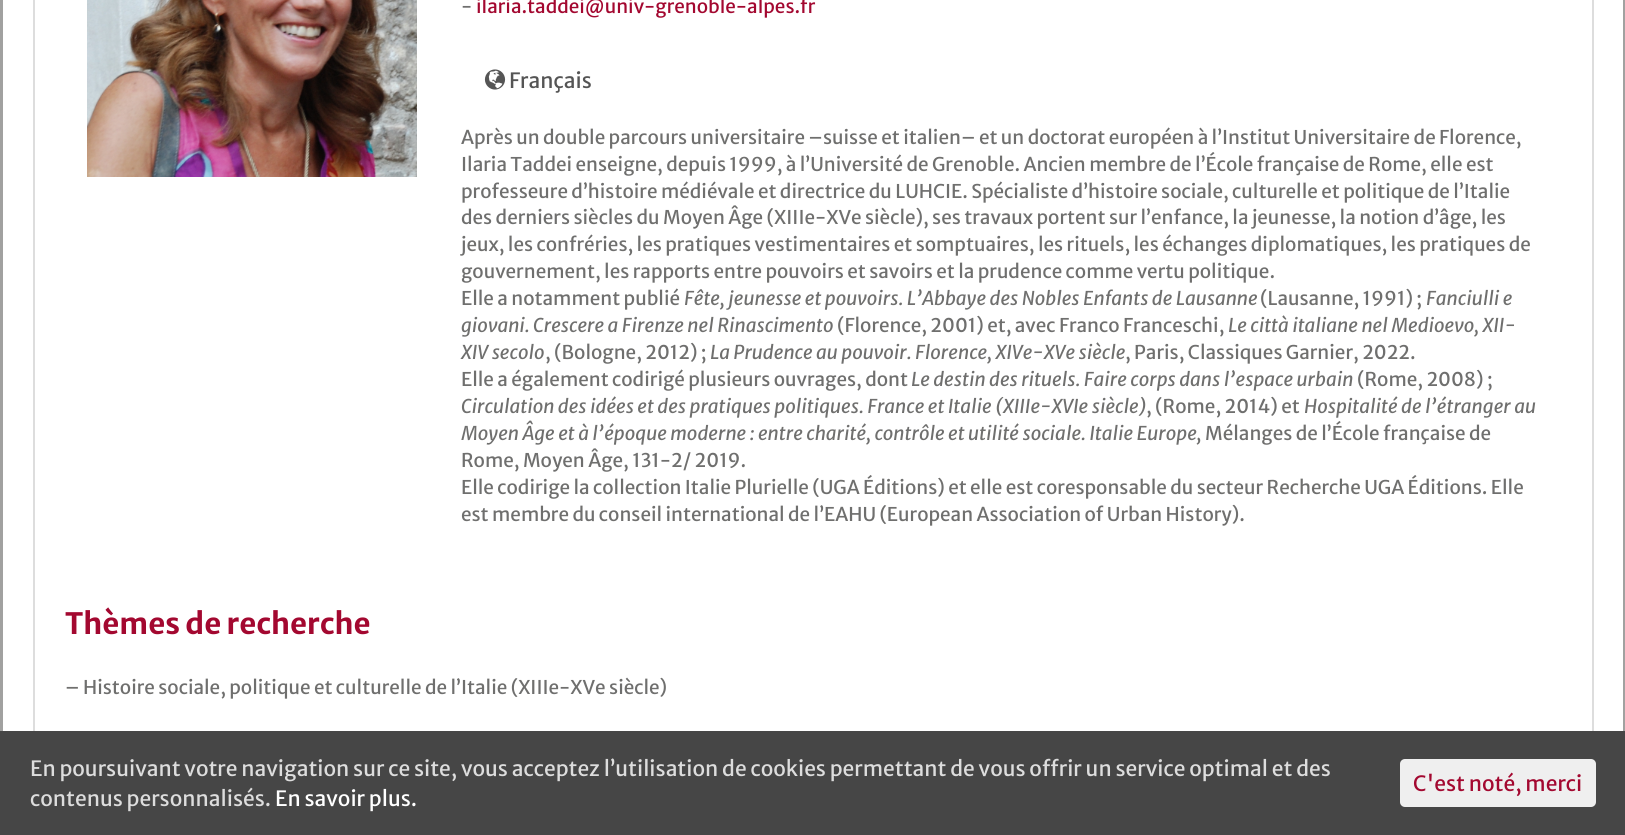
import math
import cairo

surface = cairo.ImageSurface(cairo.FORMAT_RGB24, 1625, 835)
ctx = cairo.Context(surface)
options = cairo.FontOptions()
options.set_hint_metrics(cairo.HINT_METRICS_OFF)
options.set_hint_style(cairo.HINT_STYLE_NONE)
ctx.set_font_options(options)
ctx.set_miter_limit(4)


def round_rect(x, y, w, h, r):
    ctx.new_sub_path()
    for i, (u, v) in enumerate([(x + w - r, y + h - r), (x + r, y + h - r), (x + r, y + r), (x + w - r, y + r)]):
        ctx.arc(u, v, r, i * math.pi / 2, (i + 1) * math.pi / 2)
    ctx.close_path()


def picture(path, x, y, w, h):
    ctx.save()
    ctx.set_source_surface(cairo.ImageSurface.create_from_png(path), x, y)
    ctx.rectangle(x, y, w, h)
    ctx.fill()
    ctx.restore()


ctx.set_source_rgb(1, 1, 1)
ctx.paint()
ctx.rectangle(1.5, -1.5, 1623, 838)
ctx.set_source_rgb(0.631, 0.631, 0.627)
ctx.set_line_width(3)
ctx.stroke()
ctx.set_source_rgb(0.867, 0.867, 0.867)
ctx.rectangle(1592, 0, 2, 731)
ctx.fill()
ctx.rectangle(33, 0, 2, 731)
ctx.fill()
picture("img1.png", 87, 0, 330, 177)
ctx.select_font_face("Merriweather Sans")
ctx.set_font_size(18.9)
ctx.set_source_rgb(0.435, 0.435, 0.431)
ctx.move_to(461, 13)
ctx.show_text("-")
ctx.set_source_rgb(0.639, 0.035, 0.188)
ctx.move_to(476, 13)
ctx.show_text("ilaria.taddei@univ-grenoble-alpes.fr")
picture("img2.png", 484, 69, 22, 21)
ctx.set_font_size(21)
ctx.set_source_rgb(0.333, 0.333, 0.333)
ctx.move_to(509, 88)
ctx.show_text("Français")
ctx.set_font_size(18.9)
ctx.set_source_rgb(0.435, 0.435, 0.431)
ctx.move_to(461, 144)
ctx.show_text("Après un double parcours universitaire –suisse et italien– et un doctorat européen à l’Institut Universitaire de Florence,")
ctx.move_to(461, 171)
ctx.show_text("Ilaria Taddei enseigne, depuis 1999, à l’Université de Grenoble. Ancien membre de l’École française de Rome, elle est")
ctx.move_to(461, 198)
ctx.show_text("professeure d’histoire médiévale et directrice du LUHCIE. Spécialiste d’histoire sociale, culturelle et politique de l’Italie")
ctx.move_to(461, 224)
ctx.show_text("des derniers siècles du Moyen Âge (XIIIe-XVe siècle), ses travaux portent sur l’enfance, la jeunesse, la notion d’âge, les")
ctx.move_to(461, 251)
ctx.show_text("jeux, les confréries, les pratiques vestimentaires et somptuaires, les rituels, les échanges diplomatiques, les pratiques de")
ctx.move_to(461, 278)
ctx.show_text("gouvernement, les rapports entre pouvoirs et savoirs et la prudence comme vertu politique.")
ctx.move_to(461, 305)
ctx.show_text("Elle a notamment publié")
ctx.select_font_face("Merriweather Sans", cairo.FONT_SLANT_ITALIC)
ctx.move_to(684, 305)
ctx.show_text("Fête, jeunesse et pouvoirs. L’Abbaye des Nobles Enfants de Lausanne")
ctx.select_font_face("Merriweather Sans")
ctx.move_to(1260, 305)
ctx.show_text("(Lausanne, 1991) ;")
ctx.select_font_face("Merriweather Sans", cairo.FONT_SLANT_ITALIC)
ctx.move_to(1426, 305)
ctx.show_text("Fanciulli e")
ctx.move_to(461, 332)
ctx.show_text("giovani. Crescere a Firenze nel Rinascimento")
ctx.select_font_face("Merriweather Sans")
ctx.move_to(837, 332)
ctx.show_text("(Florence, 2001) et, avec Franco Franceschi,")
ctx.select_font_face("Merriweather Sans", cairo.FONT_SLANT_ITALIC)
ctx.move_to(1228, 332)
ctx.show_text("Le città italiane nel Medioevo, XII-")
ctx.move_to(461, 359)
ctx.show_text("XIV secolo")
ctx.select_font_face("Merriweather Sans")
ctx.move_to(545, 359)
ctx.show_text(", (Bologne, 2012) ;")
ctx.select_font_face("Merriweather Sans", cairo.FONT_SLANT_ITALIC)
ctx.move_to(710, 359)
ctx.show_text("La Prudence au pouvoir. Florence, XIVe-XVe siècle")
ctx.select_font_face("Merriweather Sans")
ctx.move_to(1125, 359)
ctx.show_text(", Paris, Classiques Garnier, 2022.")
ctx.move_to(461, 386)
ctx.show_text("Elle a également codirigé plusieurs ouvrages, dont")
ctx.select_font_face("Merriweather Sans", cairo.FONT_SLANT_ITALIC)
ctx.move_to(911, 386)
ctx.show_text("Le destin des rituels. Faire corps dans l’espace urbain")
ctx.select_font_face("Merriweather Sans")
ctx.move_to(1357, 386)
ctx.show_text("(Rome, 2008) ;")
ctx.select_font_face("Merriweather Sans", cairo.FONT_SLANT_ITALIC)
ctx.move_to(461, 413)
ctx.show_text("Circulation des idées et des pratiques politiques. France et Italie (XIIIe-XVIe siècle)")
ctx.select_font_face("Merriweather Sans")
ctx.move_to(1146, 413)
ctx.show_text(", (Rome, 2014) et")
ctx.select_font_face("Merriweather Sans", cairo.FONT_SLANT_ITALIC)
ctx.move_to(1304, 413)
ctx.show_text("Hospitalité de l’étranger au")
ctx.move_to(461, 440)
ctx.show_text("Moyen Âge et à l’époque moderne : entre charité, contrôle et utilité sociale. Italie Europe,")
ctx.select_font_face("Merriweather Sans")
ctx.move_to(1205, 440)
ctx.show_text("Mélanges de l’École française de")
ctx.move_to(461, 467)
ctx.show_text("Rome, Moyen Âge, 131-2/ 2019.")
ctx.move_to(461, 494)
ctx.show_text("Elle codirige la collection Italie Plurielle (UGA Éditions) et elle est coresponsable du secteur Recherche UGA Éditions. Elle")
ctx.move_to(461, 521)
ctx.show_text("est membre du conseil international de l’EAHU (European Association of Urban History).")
ctx.select_font_face("Merriweather Sans", cairo.FONT_SLANT_NORMAL, cairo.FONT_WEIGHT_BOLD)
ctx.set_font_size(29.4)
ctx.set_source_rgb(0.639, 0.035, 0.188)
ctx.move_to(65, 634)
ctx.show_text("Thèmes de recherche")
ctx.select_font_face("Merriweather Sans")
ctx.set_font_size(18.9)
ctx.set_source_rgb(0.435, 0.435, 0.431)
ctx.move_to(65, 694)
ctx.show_text("– Histoire sociale, politique et culturelle de l’Italie (XIIIe-XVe siècle)")
ctx.set_source_rgb(0.275, 0.275, 0.275)
ctx.rectangle(0, 731, 1625, 104)
ctx.fill()
ctx.set_font_size(21)
ctx.set_source_rgb(0.867, 0.867, 0.867)
ctx.move_to(30, 776)
ctx.show_text("En poursuivant votre navigation sur ce site, vous acceptez l’utilisation de cookies permettant de vous offrir un service optimal et des")
ctx.move_to(30, 806)
ctx.show_text("contenus personnalisés.")
ctx.set_source_rgb(1, 1, 1)
ctx.move_to(275, 806)
ctx.show_text("En savoir plus.")
ctx.set_source_rgb(0.937, 0.937, 0.937)
round_rect(1400, 759, 196, 48, 5)
ctx.fill()
ctx.set_source_rgb(0.639, 0.035, 0.188)
ctx.move_to(1413, 791)
ctx.show_text("C'est noté, merci")
surface.write_to_png("page.png")
